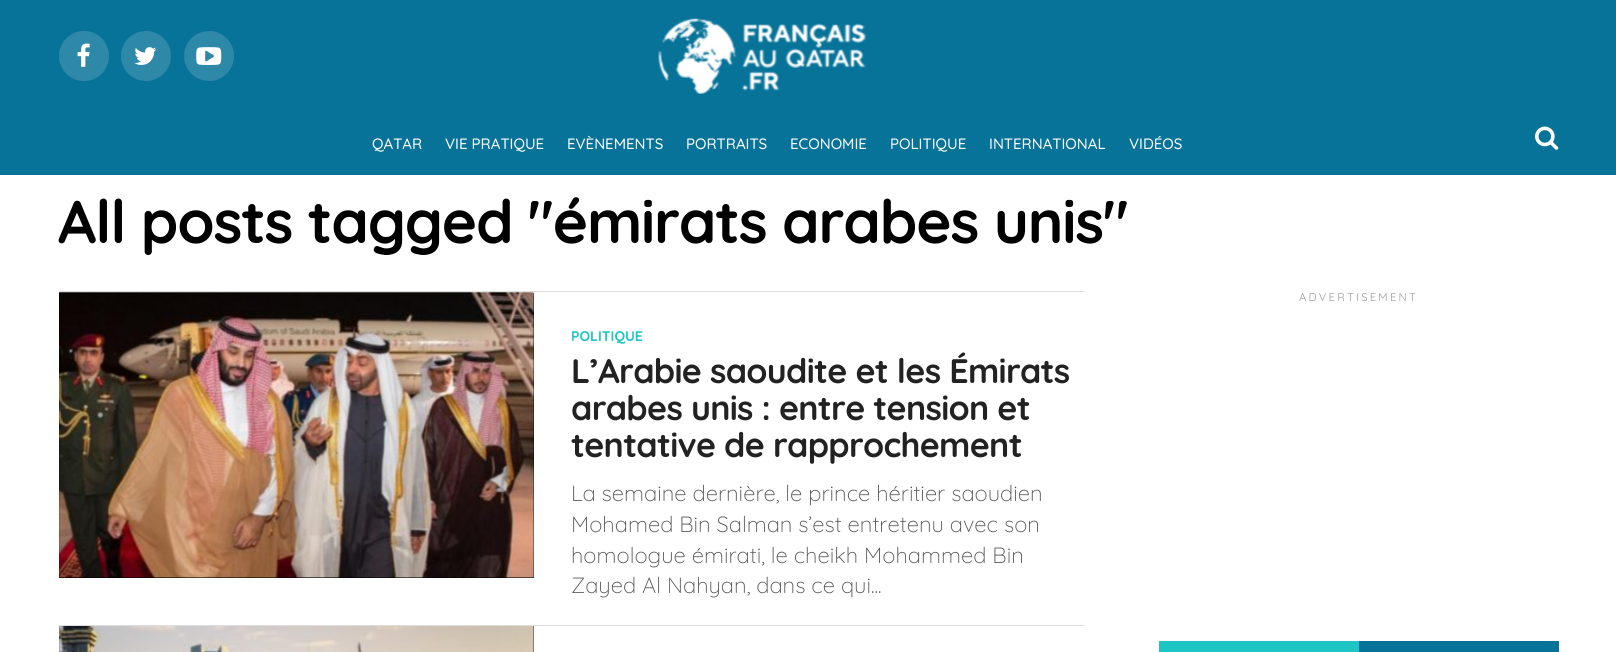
import math
import cairo

surface = cairo.ImageSurface(cairo.FORMAT_RGB24, 1616, 652)
ctx = cairo.Context(surface)
options = cairo.FontOptions()
options.set_hint_metrics(cairo.HINT_METRICS_OFF)
options.set_hint_style(cairo.HINT_STYLE_NONE)
ctx.set_font_options(options)
ctx.set_miter_limit(4)


def spaced_text(x, y, s, letter, word):
    ctx.move_to(x, y)
    for ch in s:
        ctx.show_text(ch)
        ctx.rel_move_to(letter + word * (ch == ' '), 0)


def picture(path, x, y, w, h):
    ctx.save()
    ctx.set_source_surface(cairo.ImageSurface.create_from_png(path), x, y)
    ctx.rectangle(x, y, w, h)
    ctx.fill()
    ctx.restore()


ctx.set_source_rgb(1, 1, 1)
ctx.paint()
ctx.set_source_rgb(0.035, 0.451, 0.6)
ctx.rectangle(0, 0, 1616, 175)
ctx.fill()
ctx.set_source_rgb(0.18, 0.533, 0.659)
ctx.arc(84, 56, 25, 0, 2 * math.pi)
ctx.fill()
picture("img1.png", 77, 43, 13, 24)
ctx.arc(146, 56, 25, 0, 2 * math.pi)
ctx.fill()
picture("img2.png", 134, 47, 23, 18)
ctx.arc(209, 56, 25, 0, 2 * math.pi)
ctx.fill()
picture("img3.png", 196, 47, 26, 18)
picture("img4.png", 658, 18, 208, 76)
ctx.select_font_face("Quicksand Medium")
ctx.set_font_size(15)
ctx.set_source_rgb(1, 1, 1)
ctx.move_to(372, 149)
ctx.show_text("QATAR")
ctx.move_to(445, 149)
ctx.show_text("VIE PRATIQUE")
ctx.move_to(567, 149)
ctx.show_text("EVÈNEMENTS")
ctx.move_to(686, 149)
ctx.show_text("PORTRAITS")
ctx.move_to(790, 149)
ctx.show_text("ECONOMIE")
ctx.move_to(890, 149)
ctx.show_text("POLITIQUE")
ctx.move_to(989, 149)
ctx.show_text("INTERNATIONAL")
ctx.move_to(1129, 149)
ctx.show_text("VIDÉOS")
picture("img5.png", 1535, 126, 24, 24)
ctx.select_font_face("Quicksand", cairo.FONT_SLANT_NORMAL, cairo.FONT_WEIGHT_BOLD)
ctx.set_font_size(60)
ctx.set_source_rgb(0, 0, 0)
spaced_text(58, 243, "All posts tagged \"émirats arabes unis\"", -1.2, 0)
ctx.select_font_face("Quicksand")
ctx.set_font_size(11.25)
ctx.set_source_rgb(0.6, 0.6, 0.6)
spaced_text(1299, 301, "ADVERTISEMENT", 2.25, 0)
ctx.set_source_rgb(0.035, 0.451, 0.6)
ctx.rectangle(1359, 641, 200, 11)
ctx.fill()
ctx.set_source_rgb(0.114, 0.773, 0.773)
ctx.rectangle(1159, 641, 200, 11)
ctx.fill()
ctx.set_source_rgb(0.867, 0.867, 0.867)
ctx.rectangle(59, 291, 1025, 1)
ctx.fill()
ctx.set_source_rgb(0, 0, 0)
ctx.rectangle(59, 293, 475, 285)
ctx.fill()
picture("img6.png", 59, 292, 475, 286)
ctx.select_font_face("Quicksand", cairo.FONT_SLANT_NORMAL, cairo.FONT_WEIGHT_BOLD)
ctx.set_font_size(14)
ctx.set_source_rgb(0.114, 0.773, 0.773)
ctx.move_to(571, 341)
ctx.show_text("POLITIQUE")
ctx.set_font_size(34)
ctx.set_source_rgb(0.133, 0.133, 0.133)
spaced_text(571, 383, "L’Arabie saoudite et les Émirats", -0.7, 0)
spaced_text(571, 420, "arabes unis : entre tension et", -0.7, 0)
spaced_text(571, 457, "tentative de rapprochement", -0.7, 0)
ctx.select_font_face("Quicksand Light")
ctx.set_font_size(22)
ctx.set_source_rgb(0.333, 0.333, 0.333)
ctx.move_to(571, 501)
ctx.show_text("La semaine dernière, le prince héritier saoudien")
ctx.move_to(571, 532)
ctx.show_text("Mohamed Bin Salman s’est entretenu avec son")
ctx.move_to(571, 563)
ctx.show_text("homologue émirati, le cheikh Mohammed Bin")
ctx.move_to(571, 593)
ctx.show_text("Zayed Al Nahyan, dans ce qui...")
ctx.set_source_rgb(0.867, 0.867, 0.867)
ctx.rectangle(59, 625, 1025, 1)
ctx.fill()
ctx.set_source_rgb(0, 0, 0)
ctx.rectangle(59, 626, 475, 26)
ctx.fill()
picture("img7.png", 59, 626, 475, 26)
surface.write_to_png("page.png")
